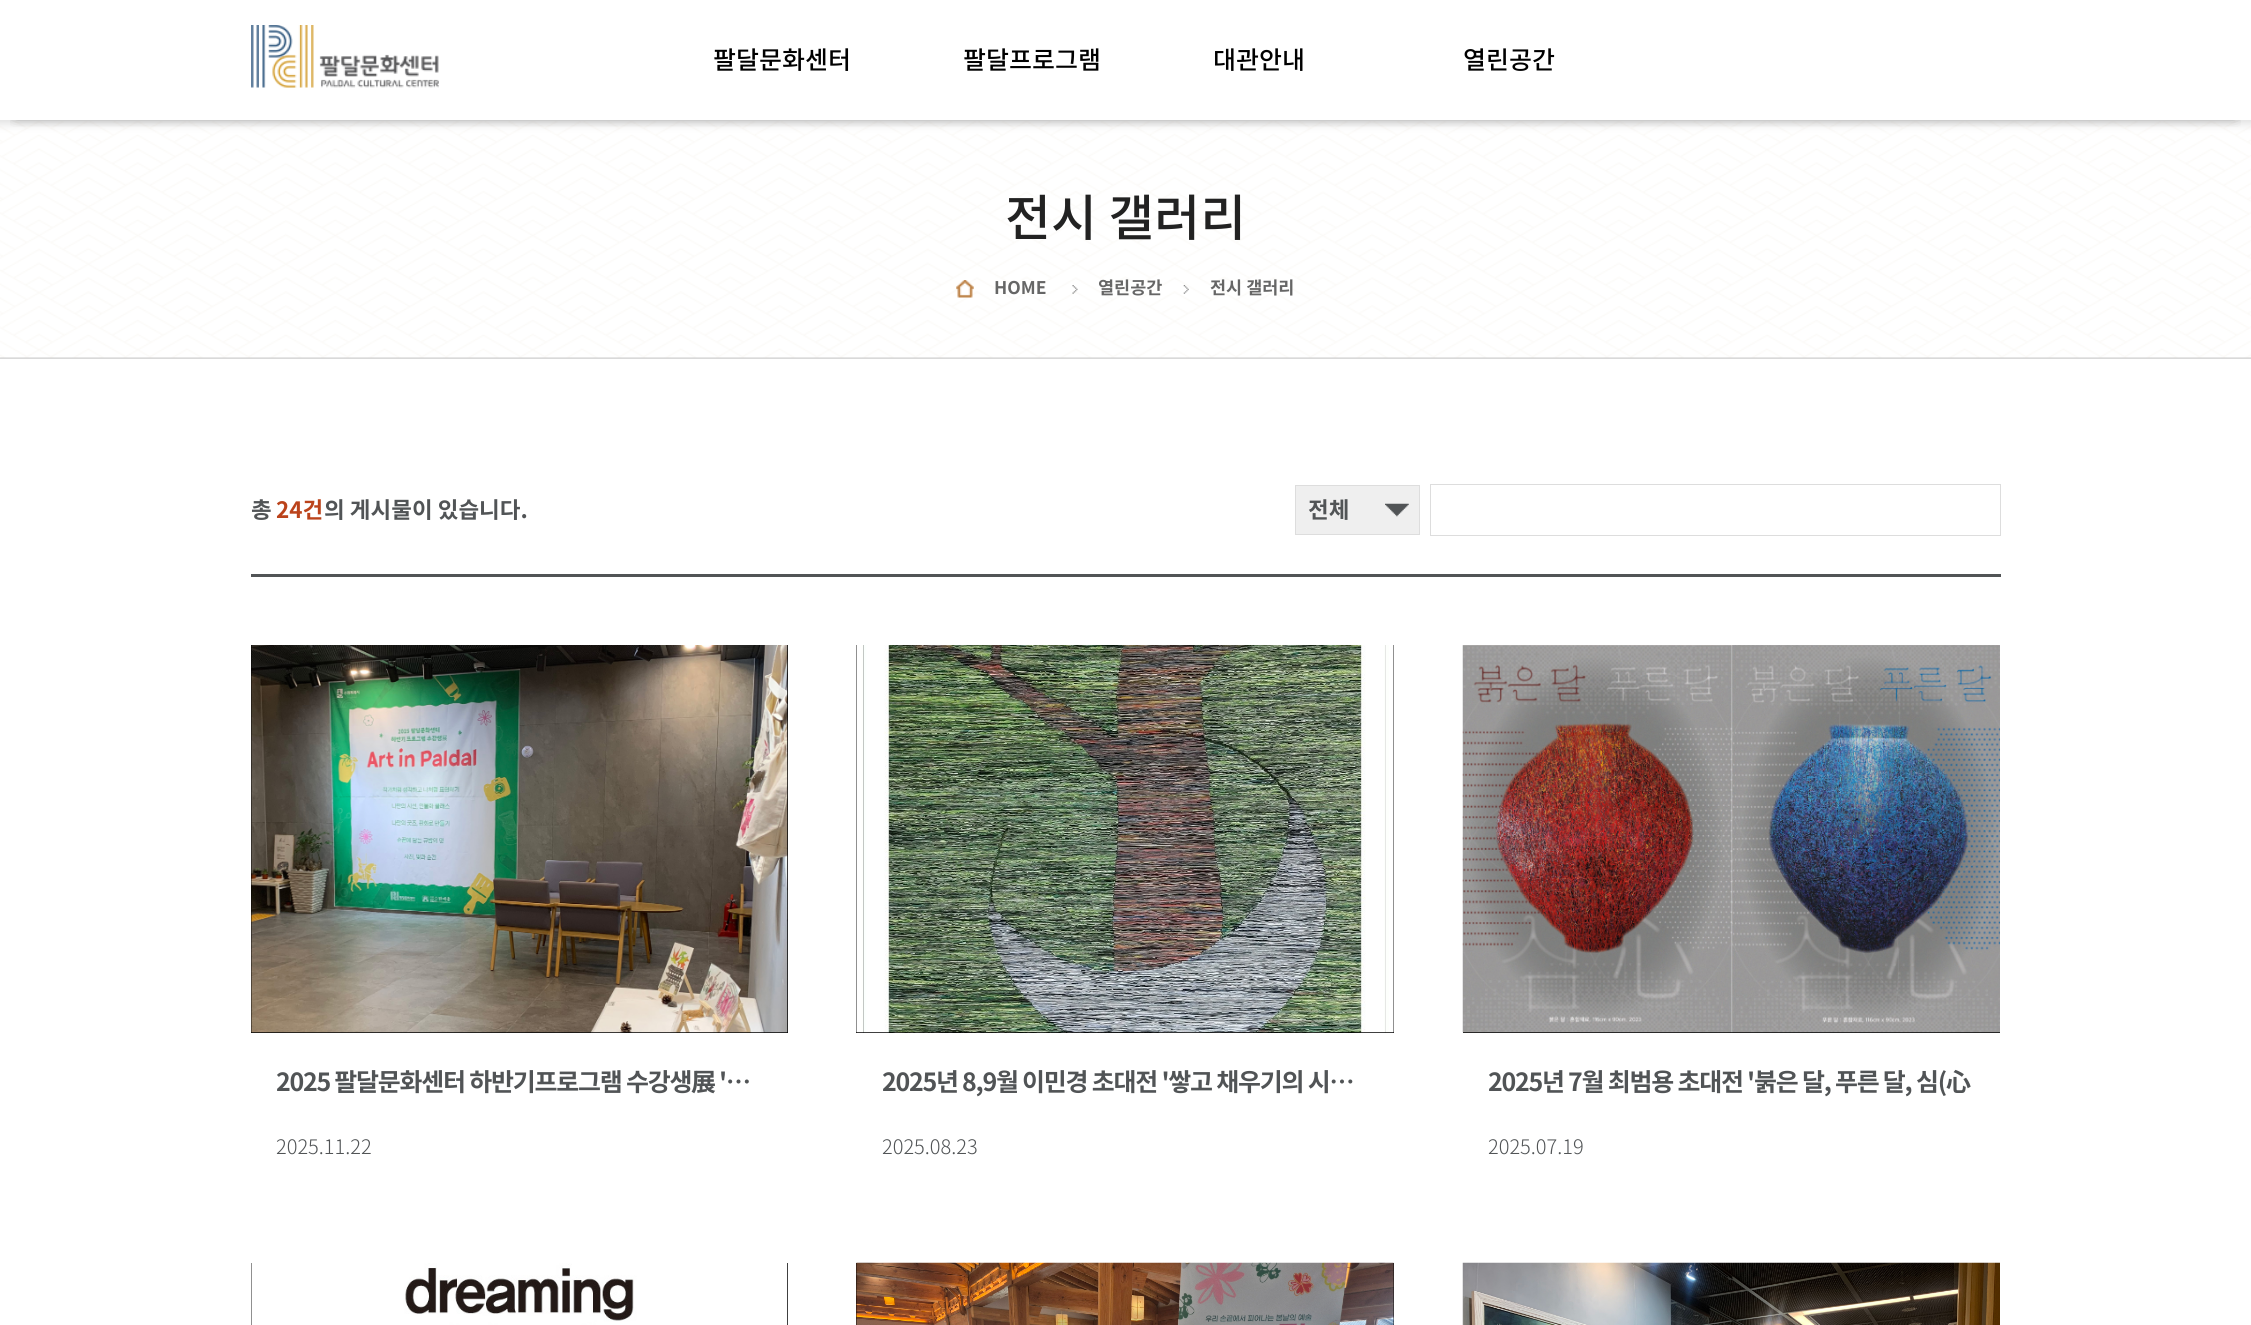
import math
import cairo

surface = cairo.ImageSurface(cairo.FORMAT_RGB24, 2251, 1325)
ctx = cairo.Context(surface)
options = cairo.FontOptions()
options.set_hint_metrics(cairo.HINT_METRICS_OFF)
options.set_hint_style(cairo.HINT_STYLE_NONE)
ctx.set_font_options(options)
ctx.set_miter_limit(4)


def spaced_text(x, y, s, letter, word):
    ctx.move_to(x, y)
    for ch in s:
        ctx.show_text(ch)
        ctx.rel_move_to(letter + word * (ch == ' '), 0)


def round_rect(x, y, w, h, r):
    ctx.new_sub_path()
    for i, (u, v) in enumerate([(x + w - r, y + h - r), (x + r, y + h - r), (x + r, y + r), (x + w - r, y + r)]):
        ctx.arc(u, v, r, i * math.pi / 2, (i + 1) * math.pi / 2)
    ctx.close_path()


def shadow(x, y, w, h, r, blur, alpha):
    ctx.push_group_with_content(cairo.CONTENT_ALPHA)
    ctx.set_operator(cairo.OPERATOR_SOURCE)
    for i in range(15, -16, -2):
        e = blur * i / 6
        if min(w, h) + 2 * e > 0:
            ctx.set_source_rgba(0, 0, 0, alpha * math.erfc((i - 1) / 8.5) / 2)
            round_rect(x - e, y - e, w + 2 * e, h + 2 * e, max(0, min(r + e + blur * .6, min(w, h) / 2 + e)))
            ctx.fill()
    ctx.mask(ctx.pop_group())


def picture(path, x, y, w, h):
    ctx.save()
    ctx.set_source_surface(cairo.ImageSurface.create_from_png(path), x, y)
    ctx.rectangle(x, y, w, h)
    ctx.fill()
    ctx.restore()


ctx.set_source_rgb(1, 1, 1)
ctx.paint()
picture("img2.png", 0, 120, 2251, 239)
ctx.save()
ctx.rectangle(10, 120, 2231, 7)
ctx.clip()
ctx.set_source_rgb(0, 0, 0)
shadow(16, 25, 2219, 88, 0, 7, 0.75)
ctx.restore()
picture("img1.png", 251, 25, 188, 63)
ctx.select_font_face("Noto Sans KR Medium")
ctx.set_font_size(25)
ctx.set_source_rgb(0, 0, 0)
ctx.move_to(713, 69)
ctx.show_text("팔달문화센터")
ctx.move_to(963, 69)
ctx.show_text("팔달프로그램")
ctx.move_to(1213, 69)
ctx.show_text("대관안내")
ctx.move_to(1463, 69)
ctx.show_text("열린공간")
ctx.set_font_size(50)
ctx.set_source_rgb(0.133, 0.133, 0.133)
ctx.move_to(1005, 236)
ctx.show_text("전시 갤러리")
picture("img3.png", 956, 280, 18, 18)
ctx.select_font_face("Noto Sans KR", cairo.FONT_SLANT_NORMAL, cairo.FONT_WEIGHT_BOLD)
ctx.set_font_size(17.5)
ctx.set_source_rgb(0.4, 0.4, 0.4)
ctx.move_to(994, 294)
ctx.show_text("HOME")
picture("img4.png", 1072, 285, 6, 9)
ctx.move_to(1098, 294)
ctx.show_text("열린공간")
picture("img5.png", 1183, 285, 6, 9)
ctx.move_to(1210, 294)
ctx.show_text("전시 갤러리")
ctx.set_font_size(22.5)
ctx.set_source_rgb(0.318, 0.329, 0.337)
ctx.move_to(251, 518)
ctx.show_text("총")
ctx.set_source_rgb(0.733, 0.263, 0.106)
ctx.move_to(276, 518)
ctx.show_text("24건")
ctx.set_source_rgb(0.318, 0.329, 0.337)
ctx.move_to(324, 518)
ctx.show_text("의 게시물이 있습니다.")
ctx.set_source_rgb(0.937, 0.937, 0.937)
ctx.rectangle(1296, 486, 123, 48)
ctx.fill()
picture("img6.png", 1385, 503, 24, 14)
ctx.rectangle(1295.5, 485.5, 124, 49)
ctx.set_source_rgb(0.867, 0.867, 0.867)
ctx.set_line_width(1)
ctx.stroke()
ctx.set_source_rgb(0.318, 0.329, 0.337)
ctx.move_to(1308, 518)
ctx.show_text("전체")
ctx.rectangle(1430.5, 484.5, 570, 51)
ctx.set_source_rgb(0.867, 0.867, 0.867)
ctx.stroke()
ctx.set_source_rgb(0.318, 0.329, 0.337)
ctx.rectangle(251, 574, 1750, 3)
ctx.fill()
ctx.set_source_rgb(0, 0, 0)
ctx.rectangle(251, 645, 537, 388)
ctx.fill()
picture("img7.png", 251, 645, 537, 388)
ctx.set_font_size(25)
ctx.set_source_rgb(0.318, 0.329, 0.337)
spaced_text(276, 1091, "2025 팔달문화센터 하반기프로그램 수강생", -1.25, 0)
ctx.select_font_face("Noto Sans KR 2", cairo.FONT_SLANT_NORMAL, cairo.FONT_WEIGHT_BOLD)
spaced_text(691, 1091, "展", -1.25, 0)
ctx.select_font_face("Noto Sans KR", cairo.FONT_SLANT_NORMAL, cairo.FONT_WEIGHT_BOLD)
spaced_text(719, 1091, "'…", -1.25, 0)
ctx.select_font_face("Noto Sans KR Light")
ctx.set_font_size(20)
ctx.move_to(276, 1154)
ctx.show_text("2025.11.22")
ctx.set_source_rgb(0, 0, 0)
ctx.rectangle(856, 645, 538, 388)
ctx.fill()
picture("img8.png", 856, 645, 538, 388)
ctx.select_font_face("Noto Sans KR", cairo.FONT_SLANT_NORMAL, cairo.FONT_WEIGHT_BOLD)
ctx.set_font_size(25)
ctx.set_source_rgb(0.318, 0.329, 0.337)
spaced_text(882, 1091, "2025년 8,9월 이민경 초대전 '쌓고 채우기의 시…", -1.25, 0)
ctx.select_font_face("Noto Sans KR Light")
ctx.set_font_size(20)
ctx.move_to(882, 1154)
ctx.show_text("2025.08.23")
ctx.set_source_rgb(0, 0, 0)
ctx.rectangle(1463, 1032, 537, 1)
ctx.fill()
picture("img9.png", 1462, 645, 538, 388)
ctx.select_font_face("Noto Sans KR", cairo.FONT_SLANT_NORMAL, cairo.FONT_WEIGHT_BOLD)
ctx.set_font_size(25)
ctx.set_source_rgb(0.318, 0.329, 0.337)
spaced_text(1488, 1091, "2025년 7월 최범용 초대전 '붉은 달, 푸른 달, 심(", -1.25, 0)
ctx.select_font_face("Noto Sans KR 2", cairo.FONT_SLANT_NORMAL, cairo.FONT_WEIGHT_BOLD)
spaced_text(1946, 1091, "心", -1.25, 0)
ctx.select_font_face("Noto Sans KR Light")
ctx.set_font_size(20)
ctx.move_to(1488, 1154)
ctx.show_text("2025.07.19")
ctx.set_source_rgb(0, 0, 0)
ctx.rectangle(251, 1263, 537, 62)
ctx.fill()
picture("img10.png", 251, 1263, 537, 62)
ctx.rectangle(856, 1263, 538, 62)
ctx.fill()
picture("img11.png", 856, 1262, 538, 63)
picture("img12.png", 1462, 1262, 538, 63)
surface.write_to_png("page.png")
